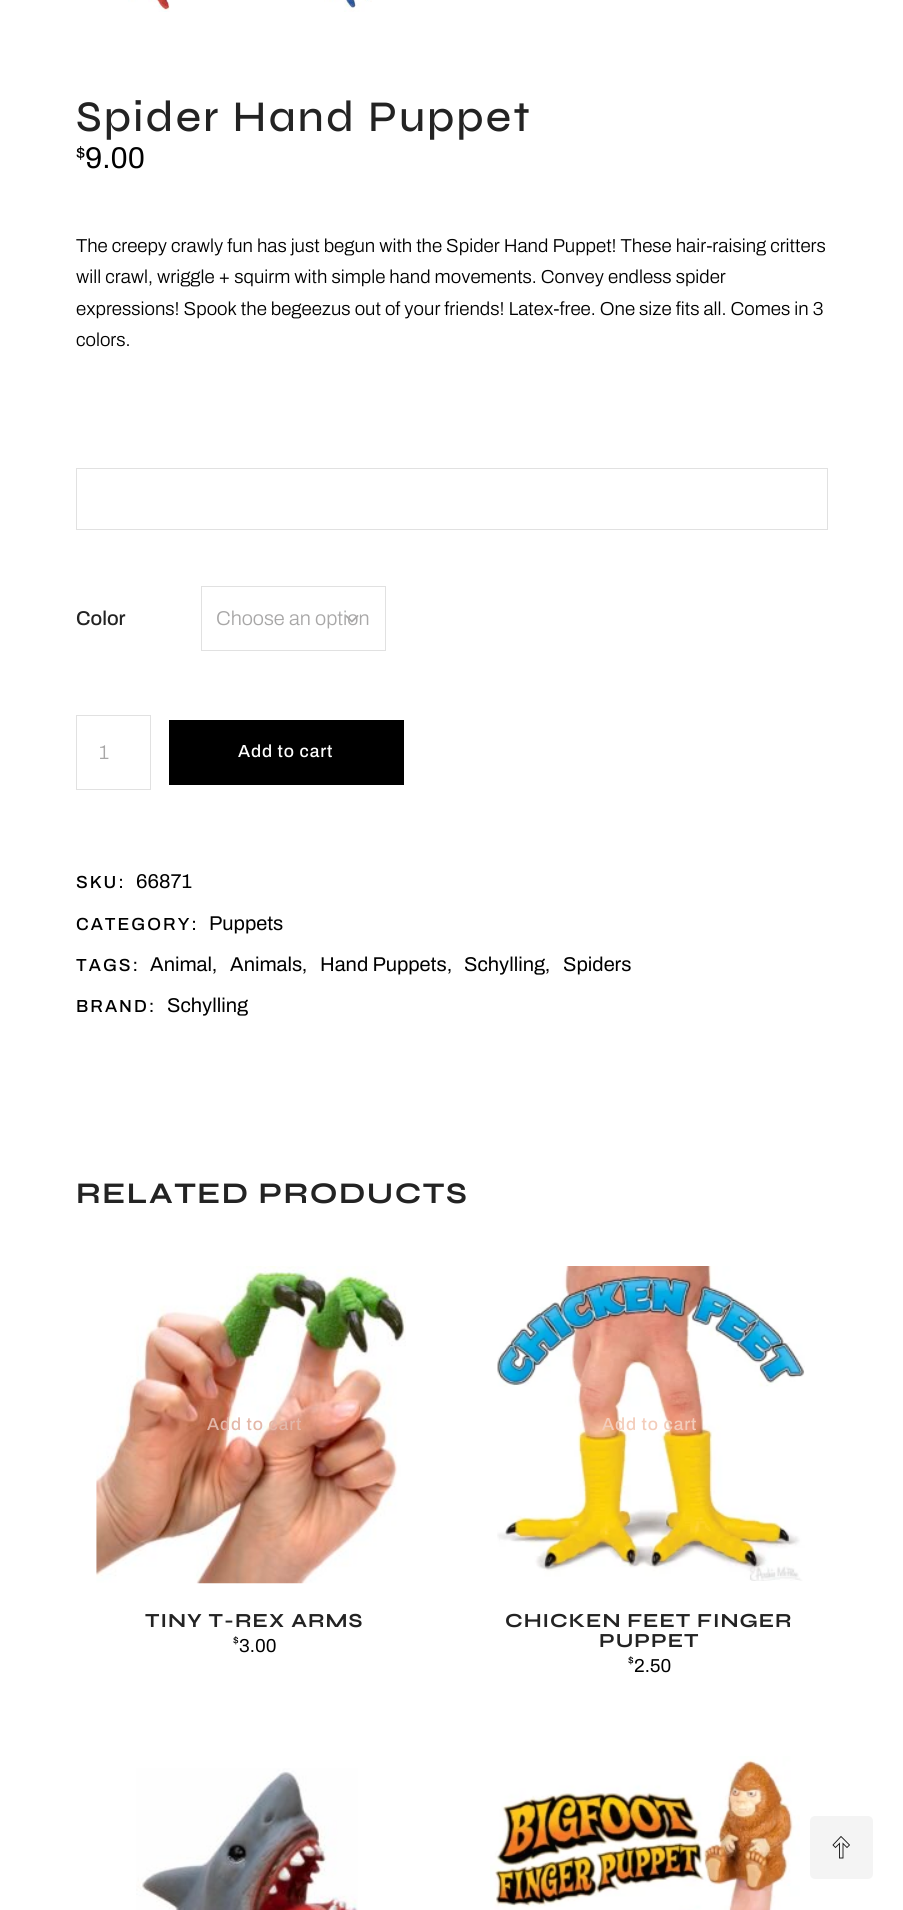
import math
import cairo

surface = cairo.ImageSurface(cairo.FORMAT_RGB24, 903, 1910)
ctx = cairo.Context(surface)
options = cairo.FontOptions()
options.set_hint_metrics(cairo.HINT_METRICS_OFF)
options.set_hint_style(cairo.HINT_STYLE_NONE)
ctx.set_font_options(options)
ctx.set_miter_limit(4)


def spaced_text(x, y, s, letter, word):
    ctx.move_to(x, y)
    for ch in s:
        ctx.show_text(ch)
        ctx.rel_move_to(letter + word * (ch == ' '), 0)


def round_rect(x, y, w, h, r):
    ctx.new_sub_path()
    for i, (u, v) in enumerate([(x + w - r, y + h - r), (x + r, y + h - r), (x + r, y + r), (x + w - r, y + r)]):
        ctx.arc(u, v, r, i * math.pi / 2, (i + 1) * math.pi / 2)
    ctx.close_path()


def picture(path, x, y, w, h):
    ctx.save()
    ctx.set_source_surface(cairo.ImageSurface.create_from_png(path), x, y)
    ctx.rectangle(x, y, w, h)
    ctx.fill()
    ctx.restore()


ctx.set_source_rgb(1, 1, 1)
ctx.paint()
picture("img1.png", 128, 0, 42, 12)
picture("img2.png", 324, 0, 48, 12)
ctx.select_font_face("Syne Medium")
ctx.set_font_size(43.75)
ctx.set_source_rgb(0.137, 0.137, 0.137)
spaced_text(76, 131, "Spider Hand Puppet", 2.2, 0)
ctx.select_font_face("Archivo")
ctx.set_font_size(18)
ctx.set_source_rgb(0, 0, 0)
ctx.move_to(76, 159)
ctx.show_text("$")
ctx.set_font_size(30)
ctx.move_to(85, 168)
ctx.show_text("9.00")
ctx.select_font_face("Archivo Light")
ctx.set_font_size(18.75)
ctx.move_to(76, 252)
ctx.show_text("The creepy crawly fun has just begun with the Spider Hand Puppet! These hair-raising critters")
ctx.move_to(76, 283)
ctx.show_text("will crawl, wriggle + squirm with simple hand movements. Convey endless spider")
ctx.move_to(76, 315)
ctx.show_text("expressions! Spook the begeezus out of your friends! Latex-free. One size fits all. Comes in 3")
ctx.move_to(76, 346)
ctx.show_text("colors.")
ctx.rectangle(76.5, 468.5, 751, 61)
ctx.set_source_rgb(0.882, 0.882, 0.882)
ctx.set_line_width(1)
ctx.stroke()
ctx.select_font_face("Archivo Medium")
ctx.set_font_size(20)
ctx.set_source_rgb(0.137, 0.137, 0.137)
ctx.move_to(76, 625)
ctx.show_text("Color")
ctx.rectangle(201.5, 586.5, 184, 64)
ctx.set_source_rgb(0.882, 0.882, 0.882)
ctx.stroke()
ctx.select_font_face("Archivo Light")
ctx.set_source_rgb(0.659, 0.655, 0.655)
ctx.move_to(216, 625)
ctx.show_text("Choose an option")
picture("img3.png", 345, 615, 14, 8)
ctx.rectangle(76.5, 715.5, 74, 74)
ctx.set_source_rgb(0.882, 0.882, 0.882)
ctx.stroke()
ctx.set_source_rgb(0.659, 0.655, 0.655)
ctx.move_to(99, 759)
ctx.show_text("1")
ctx.set_source_rgb(0, 0, 0)
ctx.rectangle(169, 720, 235, 65)
ctx.fill()
ctx.select_font_face("Archivo Medium")
ctx.set_font_size(17.5)
ctx.set_source_rgb(1, 1, 1)
spaced_text(238, 757, "Add to cart", 0.9, 0)
ctx.set_source_rgb(0, 0, 0)
spaced_text(76, 888, "SKU:", 2, 0)
ctx.select_font_face("Archivo")
ctx.set_font_size(20)
ctx.move_to(136, 888)
ctx.show_text("66871")
ctx.select_font_face("Archivo Medium")
ctx.set_font_size(17.5)
spaced_text(76, 930, "CATEGORY:", 2, 0)
ctx.select_font_face("Archivo")
ctx.set_font_size(20)
ctx.move_to(209, 930)
ctx.show_text("Puppets")
ctx.select_font_face("Archivo Medium")
ctx.set_font_size(17.5)
spaced_text(76, 971, "TAGS:", 2, 0)
ctx.select_font_face("Archivo")
ctx.set_font_size(20)
ctx.move_to(150, 971)
ctx.show_text("Animal")
ctx.select_font_face("Archivo Medium")
ctx.set_font_size(17.5)
spaced_text(212, 971, ",", 2, 0)
ctx.select_font_face("Archivo")
ctx.set_font_size(20)
ctx.move_to(230, 971)
ctx.show_text("Animals")
ctx.select_font_face("Archivo Medium")
ctx.set_font_size(17.5)
spaced_text(302, 971, ",", 2, 0)
ctx.select_font_face("Archivo")
ctx.set_font_size(20)
ctx.move_to(320, 971)
ctx.show_text("Hand Puppets")
ctx.select_font_face("Archivo Medium")
ctx.set_font_size(17.5)
spaced_text(447, 971, ",", 2, 0)
ctx.select_font_face("Archivo")
ctx.set_font_size(20)
ctx.move_to(464, 971)
ctx.show_text("Schylling")
ctx.select_font_face("Archivo Medium")
ctx.set_font_size(17.5)
spaced_text(545, 971, ",", 2, 0)
ctx.select_font_face("Archivo")
ctx.set_font_size(20)
ctx.move_to(563, 971)
ctx.show_text("Spiders")
ctx.select_font_face("Archivo Medium")
ctx.set_font_size(17.5)
spaced_text(76, 1012, "BRAND:", 2, 0)
ctx.select_font_face("Archivo")
ctx.set_font_size(20)
ctx.move_to(167, 1012)
ctx.show_text("Schylling")
ctx.select_font_face("Syne", cairo.FONT_SLANT_NORMAL, cairo.FONT_WEIGHT_BOLD)
ctx.set_font_size(30)
ctx.set_source_rgb(0.137, 0.137, 0.137)
spaced_text(76, 1203, "RELATED PRODUCTS", 1.5, 0)
picture("img4.png", 96, 1266, 310, 318)
ctx.select_font_face("Archivo Medium")
ctx.set_font_size(17.5)
ctx.set_source_rgb(0.89, 0.718, 0.659)
spaced_text(207, 1430, "Add to cart", 0.9, 0)
ctx.select_font_face("Syne", cairo.FONT_SLANT_NORMAL, cairo.FONT_WEIGHT_BOLD)
ctx.set_font_size(20)
ctx.set_source_rgb(0.137, 0.137, 0.137)
spaced_text(145, 1627, "TINY T-REX ARMS", 1, 0)
ctx.select_font_face("Archivo")
ctx.set_font_size(11)
ctx.set_source_rgb(0, 0, 0)
ctx.move_to(233, 1644)
ctx.show_text("$")
ctx.set_font_size(18.75)
ctx.move_to(239, 1652)
ctx.show_text("3.00")
picture("img5.png", 497, 1266, 308, 315)
ctx.select_font_face("Archivo Medium")
ctx.set_font_size(17.5)
ctx.set_source_rgb(0.953, 0.804, 0.733)
spaced_text(602, 1430, "Add to cart", 0.9, 0)
ctx.select_font_face("Syne", cairo.FONT_SLANT_NORMAL, cairo.FONT_WEIGHT_BOLD)
ctx.set_font_size(20)
ctx.set_source_rgb(0.137, 0.137, 0.137)
spaced_text(505, 1627, "CHICKEN FEET FINGER", 1, 0)
spaced_text(599, 1647, "PUPPET", 1, 0)
ctx.select_font_face("Archivo")
ctx.set_font_size(11)
ctx.set_source_rgb(0, 0, 0)
ctx.move_to(628, 1664)
ctx.show_text("$")
ctx.set_font_size(18.75)
ctx.move_to(634, 1672)
ctx.show_text("2.50")
picture("img6.png", 136, 1768, 222, 142)
picture("img7.png", 490, 1756, 310, 154)
ctx.set_source_rgb(0.957, 0.957, 0.957)
round_rect(810, 1816, 63, 63, 5)
ctx.fill()
ctx.save()
ctx.new_path()
ctx.move_to(832.5, 1858.5)
ctx.line_to(832.5, 1836)
ctx.line_to(850, 1836)
ctx.line_to(850, 1858.5)
ctx.close_path()
ctx.clip()
ctx.new_path()
ctx.move_to(839.5, 1858)
ctx.line_to(839.5, 1843.5)
ctx.line_to(835.5, 1847.5)
ctx.line_to(833, 1845)
ctx.line_to(841, 1836.5)
ctx.line_to(849.5, 1845)
ctx.line_to(847, 1847.5)
ctx.line_to(843, 1843.5)
ctx.line_to(843, 1858)
ctx.close_path()
ctx.set_source_rgb(0.067, 0.067, 0.067)
ctx.set_line_width(0.9)
ctx.stroke()
ctx.restore()
surface.write_to_png("page.png")
